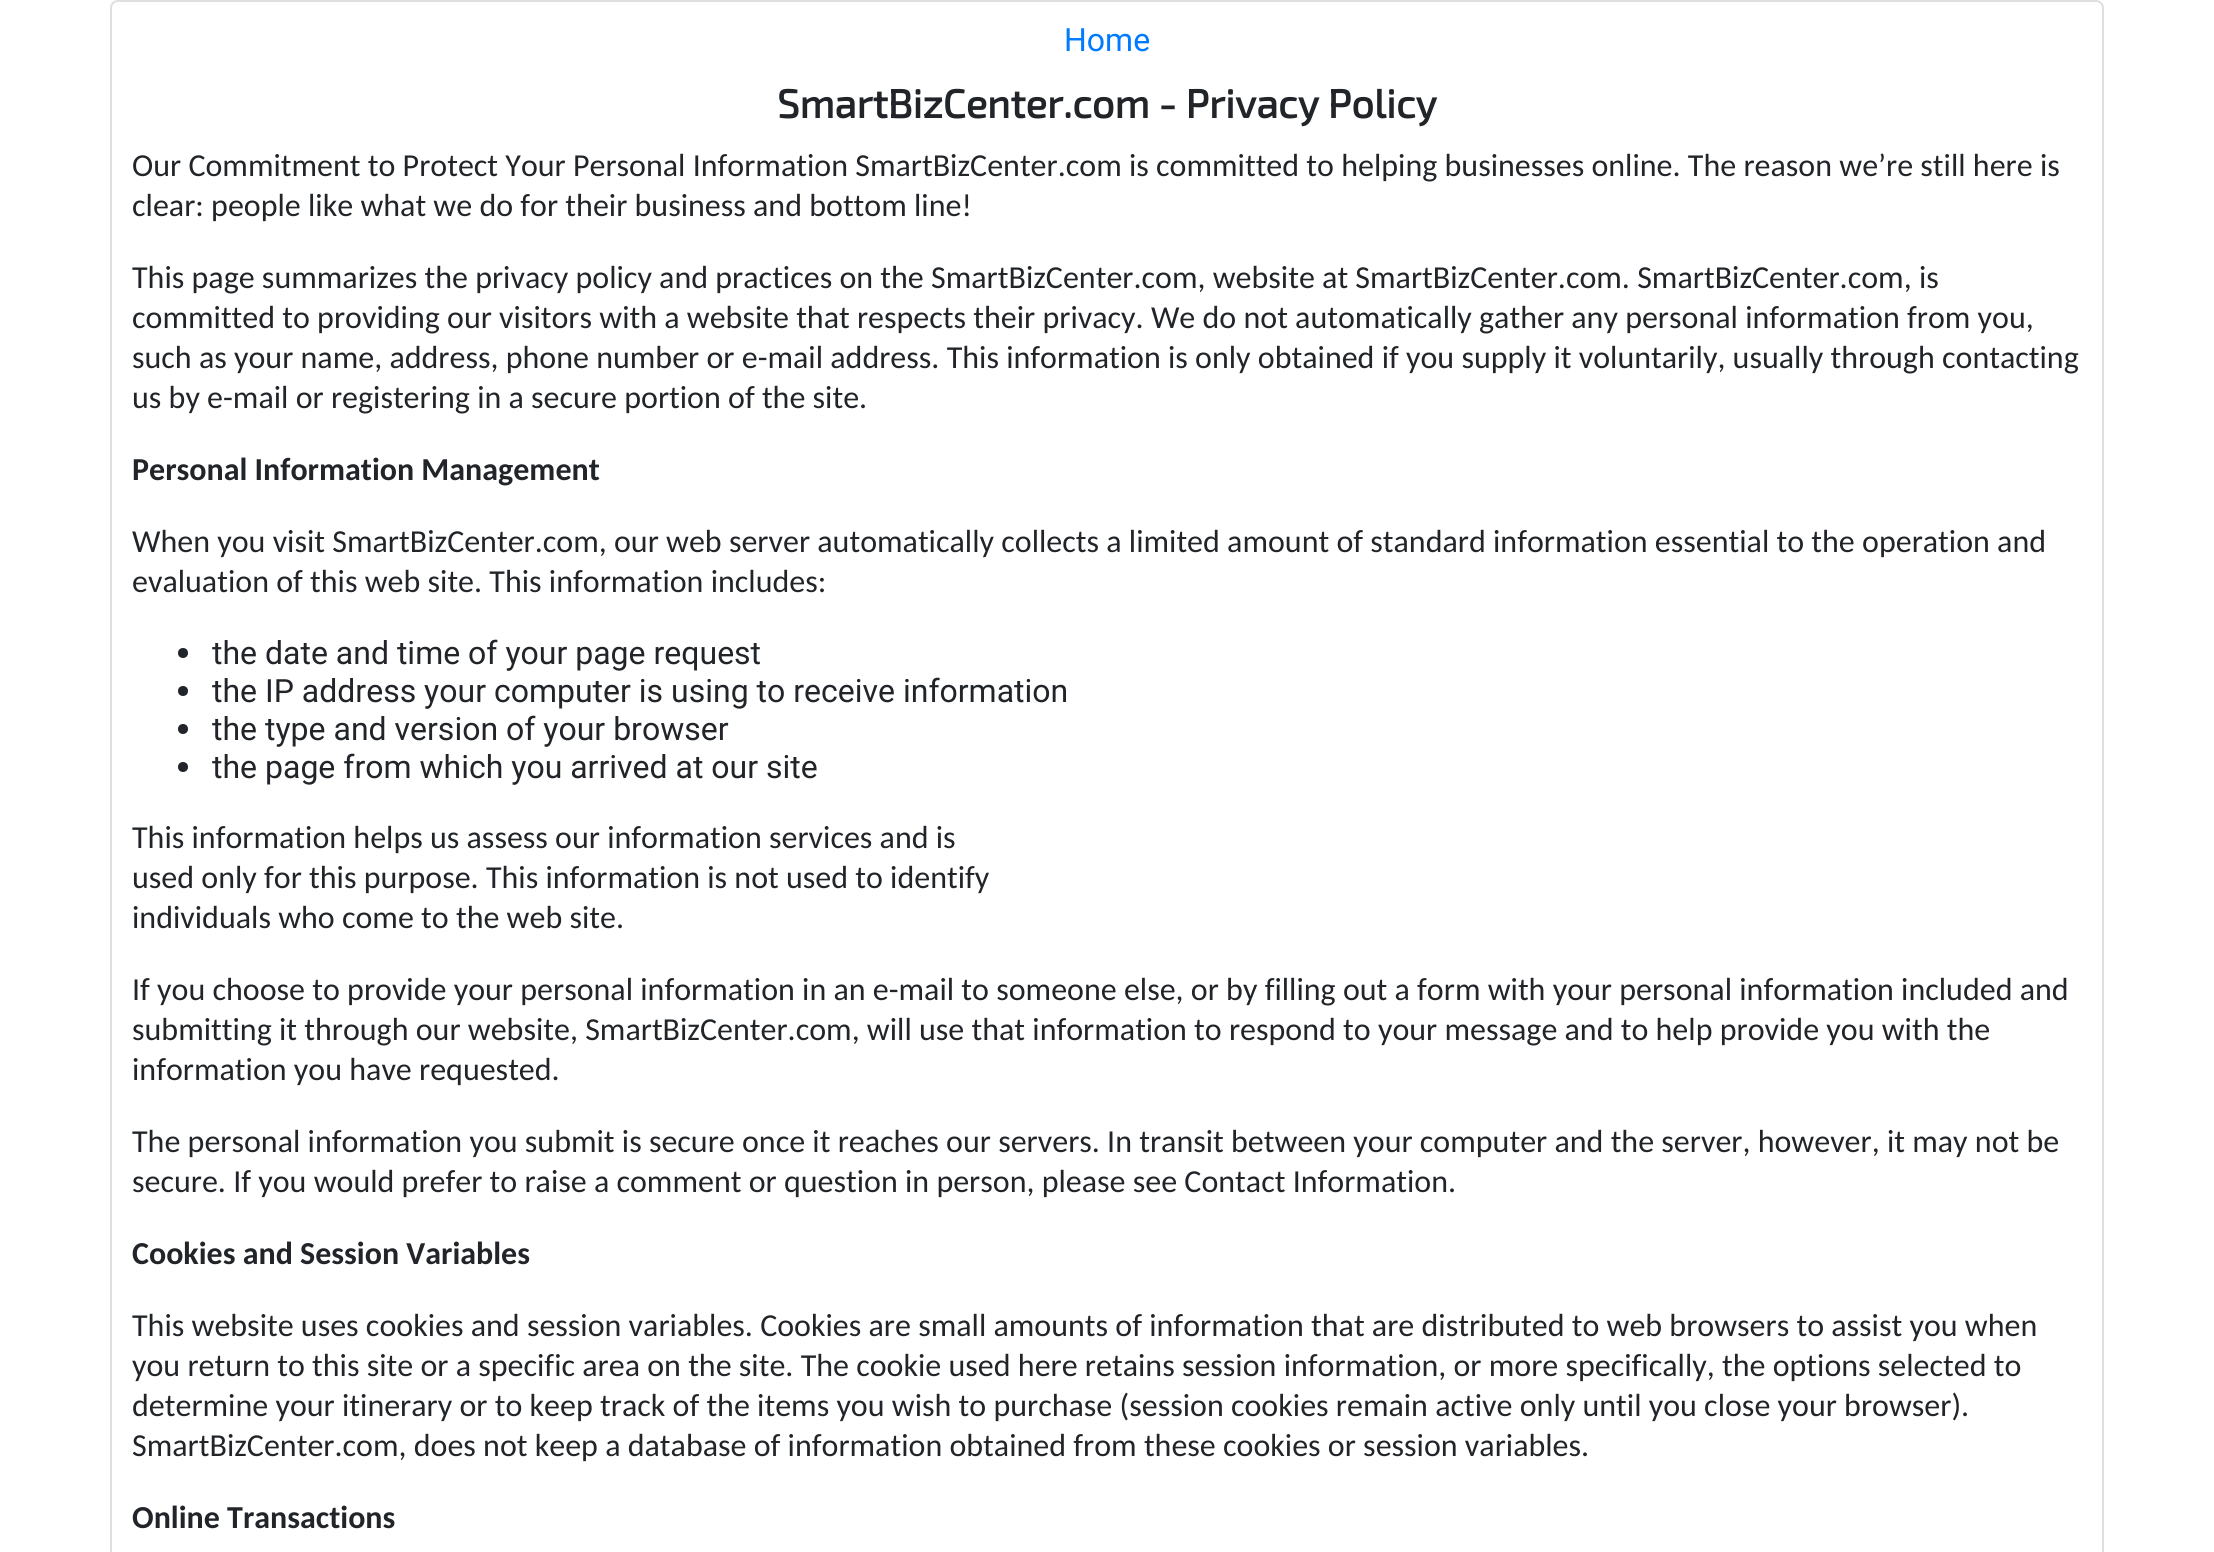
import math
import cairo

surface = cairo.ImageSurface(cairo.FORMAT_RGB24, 2214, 1552)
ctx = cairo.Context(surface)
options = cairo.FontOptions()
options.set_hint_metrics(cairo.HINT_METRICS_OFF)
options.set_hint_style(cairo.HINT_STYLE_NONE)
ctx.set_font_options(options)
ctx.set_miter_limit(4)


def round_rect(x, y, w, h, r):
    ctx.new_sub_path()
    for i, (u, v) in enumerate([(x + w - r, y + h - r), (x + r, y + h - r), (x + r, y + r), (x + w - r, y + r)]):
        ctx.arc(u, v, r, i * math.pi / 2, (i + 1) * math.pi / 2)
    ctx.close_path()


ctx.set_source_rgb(1, 1, 1)
ctx.paint()
round_rect(111, 1, 1992, 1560, 7)
ctx.set_source_rgb(0.875, 0.875, 0.875)
ctx.stroke()
ctx.select_font_face("Roboto")
ctx.set_font_size(32)
ctx.set_source_rgb(0, 0.482, 1)
ctx.move_to(1064, 51)
ctx.show_text("Home")
ctx.select_font_face("Exo 2", cairo.FONT_SLANT_NORMAL, cairo.FONT_WEIGHT_BOLD)
ctx.set_font_size(40)
ctx.set_source_rgb(0.129, 0.145, 0.161)
ctx.move_to(777, 118)
ctx.show_text("SmartBizCenter.com - Privacy Policy")
ctx.select_font_face("Carlito")
ctx.set_font_size(32)
ctx.move_to(132, 176)
ctx.show_text("Our Commitment to Protect Your Personal Information SmartBizCenter.com is committed to helping businesses online. The reason we’re still here is")
ctx.move_to(132, 216)
ctx.show_text("clear: people like what we do for their business and bottom line!")
ctx.move_to(132, 288)
ctx.show_text("This page summarizes the privacy policy and practices on the SmartBizCenter.com, website at SmartBizCenter.com. SmartBizCenter.com, is")
ctx.move_to(132, 328)
ctx.show_text("committed to providing our visitors with a website that respects their privacy. We do not automatically gather any personal information from you,")
ctx.move_to(132, 368)
ctx.show_text("such as your name, address, phone number or e-mail address. This information is only obtained if you supply it voluntarily, usually through contacting")
ctx.move_to(132, 408)
ctx.show_text("us by e-mail or registering in a secure portion of the site.")
ctx.select_font_face("Carlito", cairo.FONT_SLANT_NORMAL, cairo.FONT_WEIGHT_BOLD)
ctx.move_to(132, 480)
ctx.show_text("Personal Information Management")
ctx.select_font_face("Carlito")
ctx.move_to(132, 552)
ctx.show_text("When you visit SmartBizCenter.com, our web server automatically collects a limited amount of standard information essential to the operation and")
ctx.move_to(132, 592)
ctx.show_text("evaluation of this web site. This information includes:")
ctx.new_path()
ctx.arc(183, 653, 5, 0, 2 * math.pi)
ctx.fill()
ctx.select_font_face("Roboto")
ctx.move_to(212, 664)
ctx.show_text("the date and time of your page request")
ctx.new_path()
ctx.arc(183, 691, 5, 0, 2 * math.pi)
ctx.fill()
ctx.move_to(212, 702)
ctx.show_text("the IP address your computer is using to receive information")
ctx.new_path()
ctx.arc(183, 729, 5, 0, 2 * math.pi)
ctx.fill()
ctx.move_to(212, 740)
ctx.show_text("the type and version of your browser")
ctx.new_path()
ctx.arc(183, 767, 5, 0, 2 * math.pi)
ctx.fill()
ctx.move_to(212, 778)
ctx.show_text("the page from which you arrived at our site")
ctx.select_font_face("Carlito")
ctx.move_to(132, 848)
ctx.show_text("This information helps us assess our information services and is")
ctx.move_to(132, 888)
ctx.show_text("used only for this purpose. This information is not used to identify")
ctx.move_to(132, 928)
ctx.show_text("individuals who come to the web site.")
ctx.move_to(132, 1000)
ctx.show_text("If you choose to provide your personal information in an e-mail to someone else, or by filling out a form with your personal information included and")
ctx.move_to(132, 1040)
ctx.show_text("submitting it through our website, SmartBizCenter.com, will use that information to respond to your message and to help provide you with the")
ctx.move_to(132, 1080)
ctx.show_text("information you have requested.")
ctx.move_to(132, 1152)
ctx.show_text("The personal information you submit is secure once it reaches our servers. In transit between your computer and the server, however, it may not be")
ctx.move_to(132, 1192)
ctx.show_text("secure. If you would prefer to raise a comment or question in person, please see Contact Information.")
ctx.select_font_face("Carlito", cairo.FONT_SLANT_NORMAL, cairo.FONT_WEIGHT_BOLD)
ctx.move_to(132, 1264)
ctx.show_text("Cookies and Session Variables")
ctx.select_font_face("Carlito")
ctx.move_to(132, 1336)
ctx.show_text("This website uses cookies and session variables. Cookies are small amounts of information that are distributed to web browsers to assist you when")
ctx.move_to(132, 1376)
ctx.show_text("you return to this site or a specific area on the site. The cookie used here retains session information, or more specifically, the options selected to")
ctx.move_to(132, 1416)
ctx.show_text("determine your itinerary or to keep track of the items you wish to purchase (session cookies remain active only until you close your browser).")
ctx.move_to(132, 1456)
ctx.show_text("SmartBizCenter.com, does not keep a database of information obtained from these cookies or session variables.")
ctx.select_font_face("Carlito", cairo.FONT_SLANT_NORMAL, cairo.FONT_WEIGHT_BOLD)
ctx.move_to(132, 1528)
ctx.show_text("Online Transactions")
surface.write_to_png("page.png")
